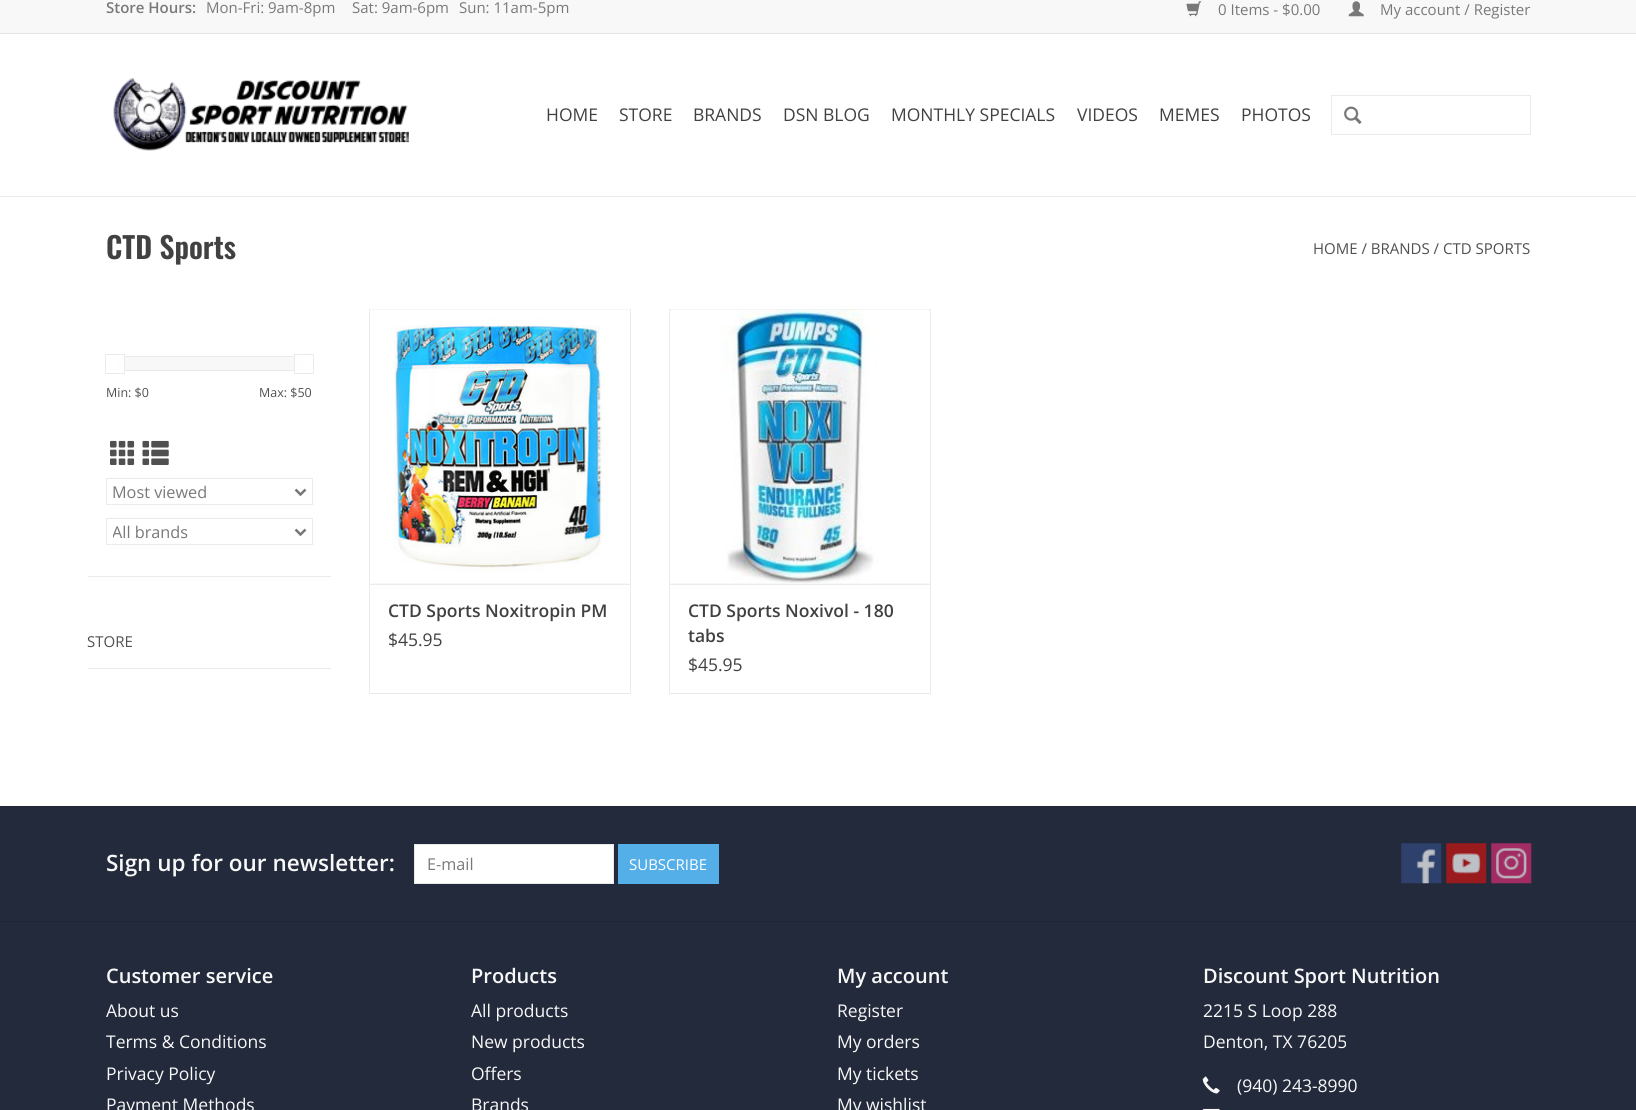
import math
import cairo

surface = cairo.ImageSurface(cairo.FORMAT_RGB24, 1636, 1110)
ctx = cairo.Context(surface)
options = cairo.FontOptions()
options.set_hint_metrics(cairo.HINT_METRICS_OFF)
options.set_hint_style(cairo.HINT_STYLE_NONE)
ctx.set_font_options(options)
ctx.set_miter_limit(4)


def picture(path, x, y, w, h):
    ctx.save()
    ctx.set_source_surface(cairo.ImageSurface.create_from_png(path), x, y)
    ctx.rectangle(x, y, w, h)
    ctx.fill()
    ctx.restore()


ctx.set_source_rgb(1, 1, 1)
ctx.paint()
ctx.set_source_rgb(0.918, 0.918, 0.918)
ctx.rectangle(0, 196, 1636, 1)
ctx.fill()
ctx.set_source_rgb(0.969, 0.969, 0.969)
ctx.rectangle(0, 0, 1636, 33)
ctx.fill()
ctx.set_source_rgb(0.898, 0.898, 0.898)
ctx.rectangle(0, 33, 1636, 1)
ctx.fill()
ctx.select_font_face("Open Sans SemiBold")
ctx.set_font_size(15)
ctx.set_source_rgb(0.475, 0.475, 0.475)
ctx.move_to(106, 13)
ctx.show_text("Store Hours:")
ctx.select_font_face("Open Sans")
ctx.move_to(206, 13)
ctx.show_text("Mon-Fri: 9am-8pm")
ctx.move_to(352, 13)
ctx.show_text("Sat: 9am-6pm")
ctx.move_to(459, 13)
ctx.show_text("Sun: 11am-5pm")
picture("img1.png", 1186, 1, 16, 16)
ctx.move_to(1218, 15)
ctx.show_text("0 Items - $0.00")
picture("img2.png", 1348, 1, 16, 16)
ctx.move_to(1380, 15)
ctx.show_text("My account / Register")
picture("img3.png", 113, 78, 296, 73)
ctx.set_font_size(17.5)
ctx.set_source_rgb(0.255, 0.255, 0.255)
ctx.move_to(546, 121)
ctx.show_text("HOME")
ctx.move_to(619, 121)
ctx.show_text("STORE")
ctx.move_to(693, 121)
ctx.show_text("BRANDS")
ctx.move_to(783, 121)
ctx.show_text("DSN BLOG")
ctx.move_to(891, 121)
ctx.show_text("MONTHLY SPECIALS")
ctx.move_to(1077, 121)
ctx.show_text("VIDEOS")
ctx.move_to(1159, 121)
ctx.show_text("MEMES")
ctx.move_to(1241, 121)
ctx.show_text("PHOTOS")
ctx.rectangle(1331.5, 95.5, 199, 39)
ctx.set_source_rgb(0.918, 0.918, 0.918)
ctx.set_line_width(1)
ctx.stroke()
picture("img4.png", 1344, 106, 18, 18)
ctx.select_font_face("Oswald SemiBold")
ctx.set_font_size(29.5)
ctx.set_source_rgb(0.255, 0.255, 0.255)
ctx.move_to(106, 259)
ctx.show_text("CTD Sports")
ctx.select_font_face("Open Sans")
ctx.set_font_size(15)
ctx.set_source_rgb(0.314, 0.314, 0.314)
ctx.move_to(1313, 254)
ctx.show_text("HOME / BRANDS / CTD SPORTS")
ctx.set_source_rgb(0.918, 0.918, 0.918)
ctx.rectangle(88, 576, 243, 1)
ctx.fill()
ctx.set_source_rgb(0.969, 0.969, 0.969)
ctx.rectangle(125, 357, 169, 13)
ctx.fill()
ctx.rectangle(116.5, 356.5, 188, 14)
ctx.set_source_rgb(0.918, 0.918, 0.918)
ctx.stroke()
ctx.set_source_rgb(0.996, 0.996, 0.996)
ctx.rectangle(116, 356, 8, 15)
ctx.fill()
ctx.rectangle(105.5, 354.5, 19, 19)
ctx.set_source_rgb(0.918, 0.918, 0.918)
ctx.stroke()
ctx.set_source_rgb(0.996, 0.996, 0.996)
ctx.rectangle(295, 356, 10, 15)
ctx.fill()
ctx.rectangle(294.5, 354.5, 19, 19)
ctx.set_source_rgb(0.918, 0.918, 0.918)
ctx.stroke()
ctx.set_font_size(12.5)
ctx.set_source_rgb(0.314, 0.314, 0.314)
ctx.move_to(106, 397)
ctx.show_text("Min: $0")
ctx.move_to(259, 397)
ctx.show_text("Max: $50")
picture("img5.png", 110, 440, 25, 25)
picture("img6.png", 142, 440, 27, 25)
ctx.rectangle(106.5, 478.5, 206, 26)
ctx.set_source_rgb(0.918, 0.918, 0.918)
ctx.stroke()
ctx.new_path()
ctx.move_to(295.5, 489.5)
ctx.line_to(300.5, 494.5)
ctx.line_to(305.5, 489.5)
ctx.set_source_rgb(0.467, 0.467, 0.467)
ctx.set_line_width(2.5)
ctx.stroke()
ctx.set_font_size(16.25)
ctx.set_source_rgb(0.475, 0.475, 0.475)
ctx.move_to(112, 498)
ctx.show_text("Most viewed")
ctx.rectangle(106.5, 518.5, 206, 26)
ctx.set_source_rgb(0.918, 0.918, 0.918)
ctx.set_line_width(1)
ctx.stroke()
ctx.new_path()
ctx.move_to(295.5, 529.5)
ctx.line_to(300.5, 534.5)
ctx.line_to(305.5, 529.5)
ctx.set_source_rgb(0.467, 0.467, 0.467)
ctx.set_line_width(2.5)
ctx.stroke()
ctx.save()
ctx.rectangle(113, 519, 178, 25)
ctx.clip()
ctx.set_source_rgb(0.475, 0.475, 0.475)
ctx.move_to(112, 538)
ctx.show_text("All brands")
ctx.restore()
ctx.set_source_rgb(0.918, 0.918, 0.918)
ctx.rectangle(88, 668, 243, 1)
ctx.fill()
ctx.set_font_size(15)
ctx.set_source_rgb(0.314, 0.314, 0.314)
ctx.move_to(87, 647)
ctx.show_text("STORE")
ctx.set_source_rgb(0.969, 0.969, 0.969)
ctx.rectangle(370, 583, 260, 1)
ctx.fill()
ctx.set_source_rgb(0.918, 0.918, 0.918)
ctx.rectangle(369, 309, 262, 1)
ctx.fill()
ctx.rectangle(630, 309, 1, 275)
ctx.fill()
ctx.rectangle(369, 309, 1, 275)
ctx.fill()
picture("img7.png", 370, 309, 260, 274)
ctx.rectangle(369.5, 584.5, 261, 109)
ctx.set_line_width(1)
ctx.stroke()
ctx.select_font_face("Open Sans SemiBold")
ctx.set_font_size(17.5)
ctx.set_source_rgb(0.255, 0.255, 0.255)
ctx.move_to(388, 617)
ctx.show_text("CTD Sports Noxitropin PM")
ctx.select_font_face("Open Sans")
ctx.move_to(388, 646)
ctx.show_text("$45.95")
ctx.set_source_rgb(0.969, 0.969, 0.969)
ctx.rectangle(670, 583, 260, 1)
ctx.fill()
ctx.set_source_rgb(0.918, 0.918, 0.918)
ctx.rectangle(669, 309, 262, 1)
ctx.fill()
ctx.rectangle(930, 309, 1, 275)
ctx.fill()
ctx.rectangle(669, 309, 1, 275)
ctx.fill()
picture("img8.png", 670, 309, 260, 274)
ctx.rectangle(669.5, 584.5, 261, 109)
ctx.stroke()
ctx.select_font_face("Open Sans SemiBold")
ctx.set_source_rgb(0.255, 0.255, 0.255)
ctx.move_to(688, 617)
ctx.show_text("CTD Sports Noxivol - 180")
ctx.move_to(688, 642)
ctx.show_text("tabs")
ctx.select_font_face("Open Sans")
ctx.move_to(688, 671)
ctx.show_text("$45.95")
ctx.set_source_rgb(0.137, 0.165, 0.231)
ctx.rectangle(0, 807, 1636, 303)
ctx.fill()
ctx.set_source_rgb(0.125, 0.149, 0.212)
ctx.rectangle(0, 806, 1636, 1)
ctx.fill()
ctx.select_font_face("Open Sans SemiBold")
ctx.set_font_size(22.5)
ctx.set_source_rgb(0.969, 0.969, 0.969)
ctx.move_to(106, 871)
ctx.show_text("Sign up for our newsletter:")
ctx.set_source_rgb(1, 1, 1)
ctx.rectangle(414.5, 844.5, 199, 39)
ctx.fill_preserve()
ctx.set_source_rgb(0.914, 0.914, 0.914)
ctx.stroke()
ctx.select_font_face("Open Sans")
ctx.set_font_size(16.25)
ctx.set_source_rgb(0.475, 0.475, 0.475)
ctx.move_to(427, 870)
ctx.show_text("E-mail")
ctx.set_source_rgb(0.329, 0.686, 0.914)
ctx.rectangle(618, 844, 101, 40)
ctx.fill()
ctx.set_font_size(15)
ctx.set_source_rgb(1, 1, 1)
ctx.move_to(629, 870)
ctx.show_text("SUBSCRIBE")
picture("img9.png", 1401, 843, 41, 41)
picture("img10.png", 1446, 843, 41, 41)
picture("img11.png", 1491, 843, 41, 41)
ctx.set_source_rgb(0.125, 0.149, 0.212)
ctx.rectangle(0, 921, 1636, 1)
ctx.fill()
ctx.select_font_face("Open Sans SemiBold")
ctx.set_font_size(20)
ctx.set_source_rgb(0.969, 0.969, 0.969)
ctx.move_to(106, 983)
ctx.show_text("Customer service")
ctx.select_font_face("Open Sans")
ctx.set_font_size(17.5)
ctx.move_to(106, 1017)
ctx.show_text("About us")
ctx.move_to(106, 1048)
ctx.show_text("Terms & Conditions")
ctx.move_to(106, 1080)
ctx.show_text("Privacy Policy")
ctx.move_to(106, 1111)
ctx.show_text("Payment Methods")
ctx.select_font_face("Open Sans SemiBold")
ctx.set_font_size(20)
ctx.move_to(471, 983)
ctx.show_text("Products")
ctx.select_font_face("Open Sans")
ctx.set_font_size(17.5)
ctx.move_to(471, 1017)
ctx.show_text("All products")
ctx.move_to(471, 1048)
ctx.show_text("New products")
ctx.move_to(471, 1080)
ctx.show_text("Offers")
ctx.move_to(471, 1111)
ctx.show_text("Brands")
ctx.select_font_face("Open Sans SemiBold")
ctx.set_font_size(20)
ctx.move_to(837, 983)
ctx.show_text("My account")
ctx.select_font_face("Open Sans")
ctx.set_font_size(17.5)
ctx.move_to(837, 1017)
ctx.show_text("Register")
ctx.move_to(837, 1048)
ctx.show_text("My orders")
ctx.move_to(837, 1080)
ctx.show_text("My tickets")
ctx.move_to(837, 1111)
ctx.show_text("My wishlist")
ctx.select_font_face("Open Sans SemiBold")
ctx.set_font_size(20)
ctx.move_to(1203, 983)
ctx.show_text("Discount Sport Nutrition")
ctx.select_font_face("Open Sans")
ctx.set_font_size(17.5)
ctx.move_to(1203, 1017)
ctx.show_text("2215 S Loop 288")
ctx.move_to(1203, 1048)
ctx.show_text("Denton, TX 76205")
picture("img12.png", 1202, 1076, 18, 18)
ctx.move_to(1237, 1092)
ctx.show_text("(940) 243-8990")
picture("img13.png", 1202, 1108, 18, 2)
surface.write_to_png("page.png")
